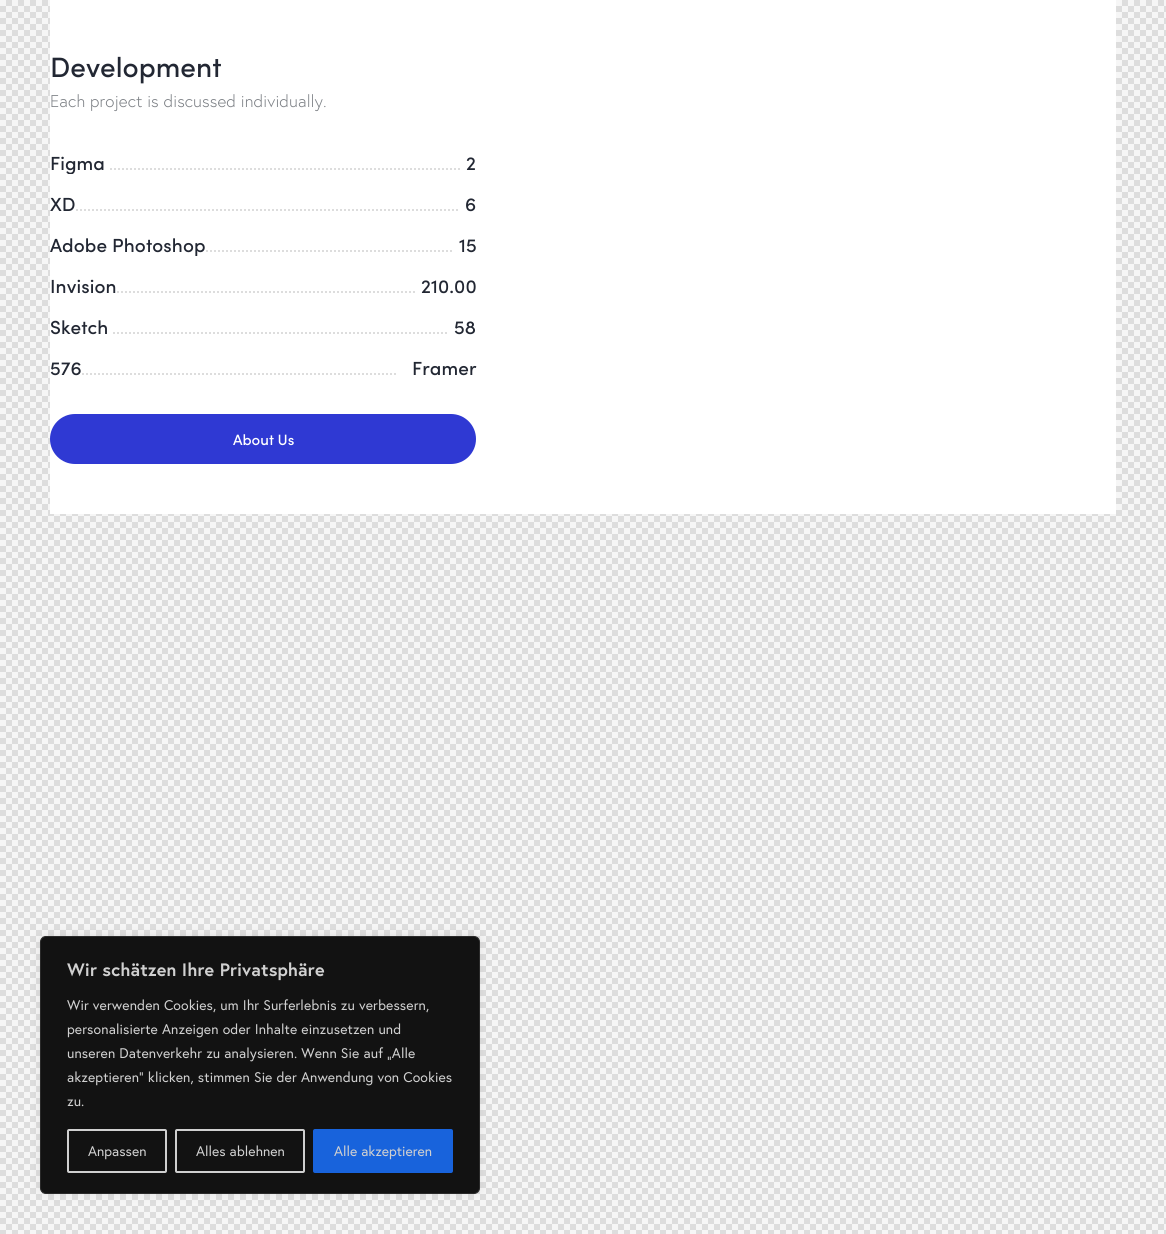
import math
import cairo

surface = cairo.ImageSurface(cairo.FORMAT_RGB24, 1166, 1234)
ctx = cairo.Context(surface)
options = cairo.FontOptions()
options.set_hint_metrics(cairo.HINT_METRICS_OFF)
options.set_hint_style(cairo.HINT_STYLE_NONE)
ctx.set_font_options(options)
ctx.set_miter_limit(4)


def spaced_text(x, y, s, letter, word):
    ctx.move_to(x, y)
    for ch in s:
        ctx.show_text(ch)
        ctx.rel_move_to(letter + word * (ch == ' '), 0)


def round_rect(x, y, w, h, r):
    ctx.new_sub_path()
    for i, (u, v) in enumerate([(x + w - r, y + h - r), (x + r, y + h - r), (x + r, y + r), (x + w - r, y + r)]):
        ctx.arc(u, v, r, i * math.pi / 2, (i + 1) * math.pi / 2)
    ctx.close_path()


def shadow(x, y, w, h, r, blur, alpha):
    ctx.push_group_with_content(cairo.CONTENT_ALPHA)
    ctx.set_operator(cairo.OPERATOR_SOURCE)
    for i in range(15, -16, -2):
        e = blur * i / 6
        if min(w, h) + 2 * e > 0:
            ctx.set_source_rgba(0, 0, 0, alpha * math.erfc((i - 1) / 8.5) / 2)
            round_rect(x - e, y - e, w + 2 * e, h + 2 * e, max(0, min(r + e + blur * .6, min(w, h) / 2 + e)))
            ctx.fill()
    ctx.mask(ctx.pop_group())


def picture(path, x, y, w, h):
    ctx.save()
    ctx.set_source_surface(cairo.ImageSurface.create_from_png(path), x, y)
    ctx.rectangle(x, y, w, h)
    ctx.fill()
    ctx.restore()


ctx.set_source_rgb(1, 1, 1)
ctx.paint()
picture("img1.png", 0, 0, 1166, 1234)
ctx.set_source_rgb(1, 1, 1)
ctx.rectangle(50, 0, 1066, 514)
ctx.fill()
ctx.select_font_face("Sofia Medium")
ctx.set_font_size(28)
ctx.set_source_rgb(0.133, 0.153, 0.2)
ctx.move_to(50, 77)
ctx.show_text("Development")
ctx.select_font_face("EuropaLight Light")
ctx.set_font_size(17)
ctx.set_source_rgb(0.478, 0.494, 0.514)
spaced_text(50, 107, "Each project is discussed individually.", 0.1, 0)
ctx.save()
ctx.rectangle(50, 150, 426, 24)
ctx.clip()
ctx.select_font_face("Sofia Medium")
ctx.set_font_size(19)
ctx.set_source_rgb(0.133, 0.153, 0.2)
spaced_text(50, 170, "Figma", 0.1, 0)
ctx.new_path()
ctx.move_to(110, 169)
ctx.line_to(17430, 169)
ctx.set_source_rgb(0.867, 0.867, 0.867)
ctx.set_dash([2, 2])
ctx.stroke()
ctx.restore()
ctx.set_source_rgb(1, 1, 1)
ctx.rectangle(462, 168, 14, 2)
ctx.fill()
ctx.select_font_face("Sofia Medium")
ctx.set_font_size(19)
ctx.set_source_rgb(0.133, 0.153, 0.2)
spaced_text(466, 170, "2", 0.1, 0)
spaced_text(50, 211, "XD", 0.1, 0)
ctx.save()
ctx.rectangle(50, 191, 426, 24)
ctx.clip()
ctx.new_path()
ctx.move_to(76, 210)
ctx.line_to(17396, 210)
ctx.set_source_rgb(0.867, 0.867, 0.867)
ctx.set_dash([2, 2])
ctx.stroke()
ctx.restore()
ctx.set_source_rgb(1, 1, 1)
ctx.rectangle(460, 209, 14, 2)
ctx.fill()
ctx.set_source_rgb(0.133, 0.153, 0.2)
spaced_text(465, 211, "6", 0.1, 0)
ctx.save()
ctx.rectangle(50, 232, 426, 24)
ctx.clip()
spaced_text(50, 252, "Adobe Photoshop", 0.1, 0)
ctx.new_path()
ctx.move_to(206, 251)
ctx.line_to(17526, 251)
ctx.set_source_rgb(0.867, 0.867, 0.867)
ctx.set_dash([2, 2])
ctx.stroke()
ctx.restore()
ctx.set_source_rgb(1, 1, 1)
ctx.rectangle(454, 250, 22, 2)
ctx.fill()
ctx.set_source_rgb(0.133, 0.153, 0.2)
spaced_text(459, 252, "15", 0.1, 0)
spaced_text(50, 293, "Invision", 0.1, 0)
ctx.save()
ctx.rectangle(50, 273, 426, 24)
ctx.clip()
ctx.new_path()
ctx.move_to(117, 292)
ctx.line_to(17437, 292)
ctx.set_source_rgb(0.867, 0.867, 0.867)
ctx.set_dash([2, 2])
ctx.stroke()
ctx.restore()
ctx.set_source_rgb(1, 1, 1)
ctx.rectangle(417, 291, 58, 2)
ctx.fill()
ctx.set_source_rgb(0.133, 0.153, 0.2)
spaced_text(421, 293, "210.00", 0.1, 0)
spaced_text(50, 334, "Sketch", 0.1, 0)
ctx.save()
ctx.rectangle(50, 314, 426, 24)
ctx.clip()
ctx.new_path()
ctx.move_to(113, 333)
ctx.line_to(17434, 333)
ctx.set_source_rgb(0.867, 0.867, 0.867)
ctx.set_dash([2, 2])
ctx.stroke()
ctx.restore()
ctx.set_source_rgb(1, 1, 1)
ctx.rectangle(449, 332, 26, 2)
ctx.fill()
ctx.set_source_rgb(0.133, 0.153, 0.2)
spaced_text(454, 334, "58", 0.1, 0)
spaced_text(50, 375, "576", 0.1, 0)
ctx.save()
ctx.rectangle(50, 355, 426, 24)
ctx.clip()
ctx.new_path()
ctx.move_to(82, 374)
ctx.line_to(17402, 374)
ctx.set_source_rgb(0.867, 0.867, 0.867)
ctx.set_dash([2, 2])
ctx.stroke()
ctx.restore()
ctx.set_source_rgb(1, 1, 1)
ctx.rectangle(398, 373, 78, 2)
ctx.fill()
ctx.set_source_rgb(0.133, 0.153, 0.2)
spaced_text(412, 375, "Framer", 0.1, 0)
ctx.set_source_rgb(0.184, 0.224, 0.827)
round_rect(50, 414, 426, 50, 25)
ctx.fill()
ctx.set_font_size(15)
ctx.set_source_rgb(1, 1, 1)
ctx.move_to(233, 445)
ctx.show_text("About Us")
ctx.set_source_rgb(0.675, 0.671, 0.671)
shadow(40, 935, 440, 258, 6, 5, 0.3)
ctx.set_source_rgb(0.071, 0.071, 0.071)
round_rect(40.5, 936.5, 439, 257, 5.5)
ctx.fill_preserve()
ctx.set_source_rgb(0.165, 0.165, 0.165)
ctx.set_line_width(1)
ctx.stroke()
ctx.select_font_face("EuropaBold", cairo.FONT_SLANT_NORMAL, cairo.FONT_WEIGHT_BOLD)
ctx.set_font_size(18)
ctx.set_source_rgb(0.816, 0.816, 0.816)
spaced_text(67, 976, "Wir schätzen Ihre Privatsphäre", 0.1, 0)
ctx.select_font_face("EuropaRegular")
ctx.set_font_size(14)
spaced_text(67, 1010, "Wir verwenden Cookies, um Ihr Surferlebnis zu verbessern,", 0.1, 0)
spaced_text(67, 1034, "personalisierte Anzeigen oder Inhalte einzusetzen und", 0.1, 0)
spaced_text(67, 1058, "unseren Datenverkehr zu analysieren. Wenn Sie auf „Alle", 0.1, 0)
spaced_text(67, 1082, "akzeptieren\" klicken, stimmen Sie der Anwendung von Cookies", 0.1, 0)
spaced_text(67, 1106, "zu.", 0.1, 0)
round_rect(68, 1130, 98, 42, 1)
ctx.set_line_width(2)
ctx.stroke()
ctx.move_to(88, 1156)
ctx.show_text("Anpassen")
round_rect(176, 1130, 128, 42, 1)
ctx.stroke()
ctx.move_to(196, 1156)
ctx.show_text("Alles ablehnen")
ctx.set_source_rgb(0.094, 0.388, 0.863)
round_rect(314, 1130, 138, 42, 1)
ctx.fill_preserve()
ctx.stroke()
ctx.set_source_rgb(0.816, 0.816, 0.816)
ctx.move_to(334, 1156)
ctx.show_text("Alle akzeptieren")
surface.write_to_png("page.png")
